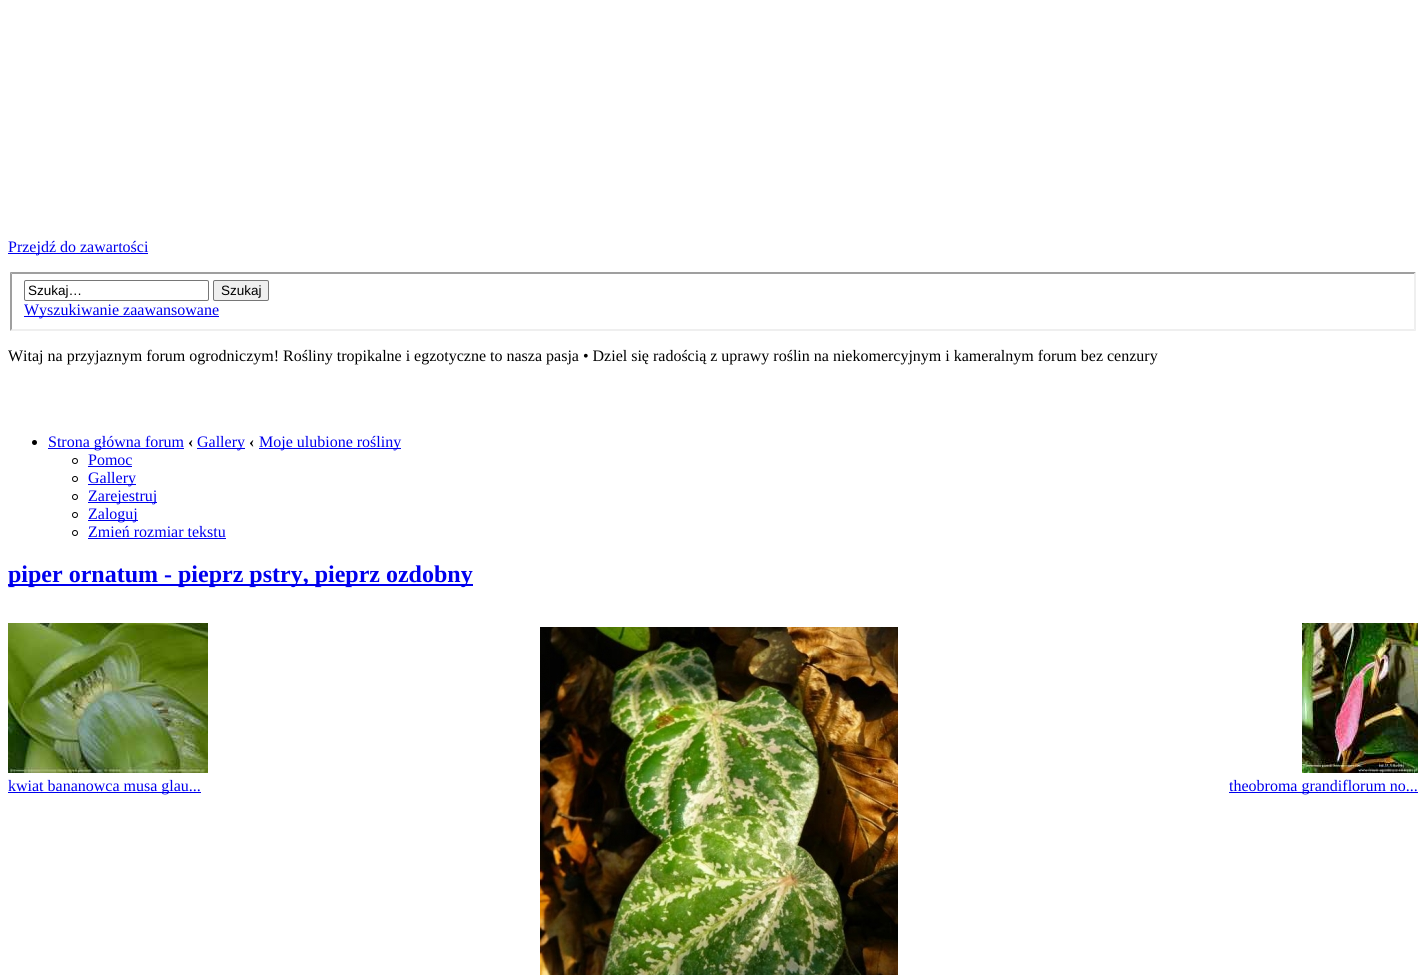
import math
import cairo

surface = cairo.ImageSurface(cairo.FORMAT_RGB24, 1426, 975)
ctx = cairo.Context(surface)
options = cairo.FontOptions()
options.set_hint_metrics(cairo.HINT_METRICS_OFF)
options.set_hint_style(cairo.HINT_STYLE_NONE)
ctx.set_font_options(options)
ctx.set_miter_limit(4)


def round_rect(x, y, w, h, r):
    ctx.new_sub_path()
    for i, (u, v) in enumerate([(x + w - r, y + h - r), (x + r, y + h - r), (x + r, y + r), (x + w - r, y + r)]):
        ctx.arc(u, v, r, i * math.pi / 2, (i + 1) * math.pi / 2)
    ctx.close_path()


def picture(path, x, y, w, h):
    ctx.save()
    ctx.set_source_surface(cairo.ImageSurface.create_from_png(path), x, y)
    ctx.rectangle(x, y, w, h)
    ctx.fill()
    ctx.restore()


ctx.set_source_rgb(1, 1, 1)
ctx.paint()
ctx.set_source_rgb(0, 0, 0.933)
ctx.rectangle(8, 253, 140, 1)
ctx.fill()
ctx.select_font_face("Liberation Serif")
ctx.set_font_size(16)
ctx.move_to(8, 252)
ctx.show_text("Przejdź do zawartości")
ctx.set_source_rgb(0.624, 0.624, 0.624)
ctx.new_path()
ctx.move_to(10, 272)
ctx.line_to(1416, 272)
ctx.line_to(1414, 274)
ctx.line_to(12, 274)
ctx.close_path()
ctx.fill()
ctx.set_source_rgb(0.937, 0.937, 0.937)
ctx.new_path()
ctx.move_to(1416, 272)
ctx.line_to(1416, 331)
ctx.line_to(1414, 329)
ctx.line_to(1414, 274)
ctx.close_path()
ctx.fill()
ctx.new_path()
ctx.move_to(1416, 331)
ctx.line_to(10, 331)
ctx.line_to(12, 329)
ctx.line_to(1414, 329)
ctx.close_path()
ctx.fill()
ctx.set_source_rgb(0.624, 0.624, 0.624)
ctx.new_path()
ctx.move_to(10, 331)
ctx.line_to(10, 272)
ctx.line_to(12, 274)
ctx.line_to(12, 329)
ctx.close_path()
ctx.fill()
round_rect(24.5, 280.5, 184, 20, 1.5)
ctx.set_source_rgb(0.463, 0.463, 0.463)
ctx.set_line_width(1)
ctx.stroke()
ctx.select_font_face("Liberation Sans")
ctx.set_font_size(13.5)
ctx.set_source_rgb(0, 0, 0)
ctx.move_to(28, 295)
ctx.show_text("Szukaj…")
ctx.set_source_rgb(0.937, 0.937, 0.937)
round_rect(213.5, 280.5, 55, 20, 1.5)
ctx.fill_preserve()
ctx.set_source_rgb(0.463, 0.463, 0.463)
ctx.stroke()
ctx.set_source_rgb(0, 0, 0)
ctx.move_to(221, 295)
ctx.show_text("Szukaj")
ctx.set_source_rgb(0, 0, 0.933)
ctx.rectangle(24, 316, 195, 1)
ctx.fill()
ctx.select_font_face("Liberation Serif")
ctx.set_font_size(16)
ctx.move_to(24, 315)
ctx.show_text("Wyszukiwanie zaawansowane")
ctx.set_source_rgb(0, 0, 0)
ctx.move_to(8, 361)
ctx.show_text("Witaj na przyjaznym forum ogrodniczym! Rośliny tropikalne i egzotyczne to nasza pasja • Dziel się radością z uprawy roślin na niekomercyjnym i kameralnym forum bez cenzury")
ctx.new_path()
ctx.arc(34.5, 442.5, 2.5, 0, 2 * math.pi)
ctx.fill()
ctx.set_source_rgb(0, 0, 0.933)
ctx.rectangle(48, 448, 136, 1)
ctx.fill()
ctx.move_to(48, 447)
ctx.show_text("Strona główna forum")
ctx.select_font_face("Liberation Serif", cairo.FONT_SLANT_NORMAL, cairo.FONT_WEIGHT_BOLD)
ctx.set_source_rgb(0, 0, 0)
ctx.move_to(188, 447)
ctx.show_text("‹")
ctx.set_source_rgb(0, 0, 0.933)
ctx.rectangle(197, 448, 48, 1)
ctx.fill()
ctx.select_font_face("Liberation Serif")
ctx.move_to(197, 447)
ctx.show_text("Gallery")
ctx.select_font_face("Liberation Serif", cairo.FONT_SLANT_NORMAL, cairo.FONT_WEIGHT_BOLD)
ctx.set_source_rgb(0, 0, 0)
ctx.move_to(249, 447)
ctx.show_text("‹")
ctx.set_source_rgb(0, 0, 0.933)
ctx.rectangle(259, 448, 142, 1)
ctx.fill()
ctx.select_font_face("Liberation Serif")
ctx.move_to(259, 447)
ctx.show_text("Moje ulubione rośliny")
ctx.new_path()
ctx.arc(75, 461, 2.5, 0, 2 * math.pi)
ctx.set_source_rgb(0, 0, 0)
ctx.stroke()
ctx.set_source_rgb(0, 0, 0.933)
ctx.move_to(88, 465)
ctx.show_text("Pomoc")
ctx.rectangle(88, 466, 44, 1)
ctx.fill()
ctx.arc(75, 479, 2.5, 0, 2 * math.pi)
ctx.set_source_rgb(0, 0, 0)
ctx.stroke()
ctx.set_source_rgb(0, 0, 0.933)
ctx.rectangle(88, 484, 48, 1)
ctx.fill()
ctx.move_to(88, 483)
ctx.show_text("Gallery")
ctx.new_path()
ctx.arc(75, 497, 2.5, 0, 2 * math.pi)
ctx.set_source_rgb(0, 0, 0)
ctx.stroke()
ctx.set_source_rgb(0, 0, 0.933)
ctx.rectangle(88, 502, 69, 1)
ctx.fill()
ctx.move_to(88, 501)
ctx.show_text("Zarejestruj")
ctx.new_path()
ctx.arc(75, 515, 2.5, 0, 2 * math.pi)
ctx.set_source_rgb(0, 0, 0)
ctx.stroke()
ctx.set_source_rgb(0, 0, 0.933)
ctx.rectangle(88, 520, 50, 1)
ctx.fill()
ctx.move_to(88, 519)
ctx.show_text("Zaloguj")
ctx.new_path()
ctx.arc(75, 533, 2.5, 0, 2 * math.pi)
ctx.set_source_rgb(0, 0, 0)
ctx.stroke()
ctx.set_source_rgb(0, 0, 0.933)
ctx.move_to(88, 537)
ctx.show_text("Zmień rozmiar tekstu")
ctx.rectangle(88, 538, 138, 1)
ctx.fill()
ctx.rectangle(8, 584, 465, 2)
ctx.fill()
ctx.select_font_face("Liberation Serif", cairo.FONT_SLANT_NORMAL, cairo.FONT_WEIGHT_BOLD)
ctx.set_font_size(24)
ctx.move_to(8, 582)
ctx.show_text("piper ornatum - pieprz pstry, pieprz ozdobny")
picture("img1.png", 8, 623, 200, 150)
ctx.rectangle(8, 792, 193, 1)
ctx.fill()
ctx.select_font_face("Liberation Serif")
ctx.set_font_size(16)
ctx.move_to(8, 791)
ctx.show_text("kwiat bananowca musa glau...")
picture("img2.png", 540, 627, 358, 348)
picture("img3.png", 1302, 623, 116, 150)
ctx.rectangle(1229, 792, 189, 1)
ctx.fill()
ctx.move_to(1229, 791)
ctx.show_text("theobroma grandiflorum no...")
surface.write_to_png("page.png")
